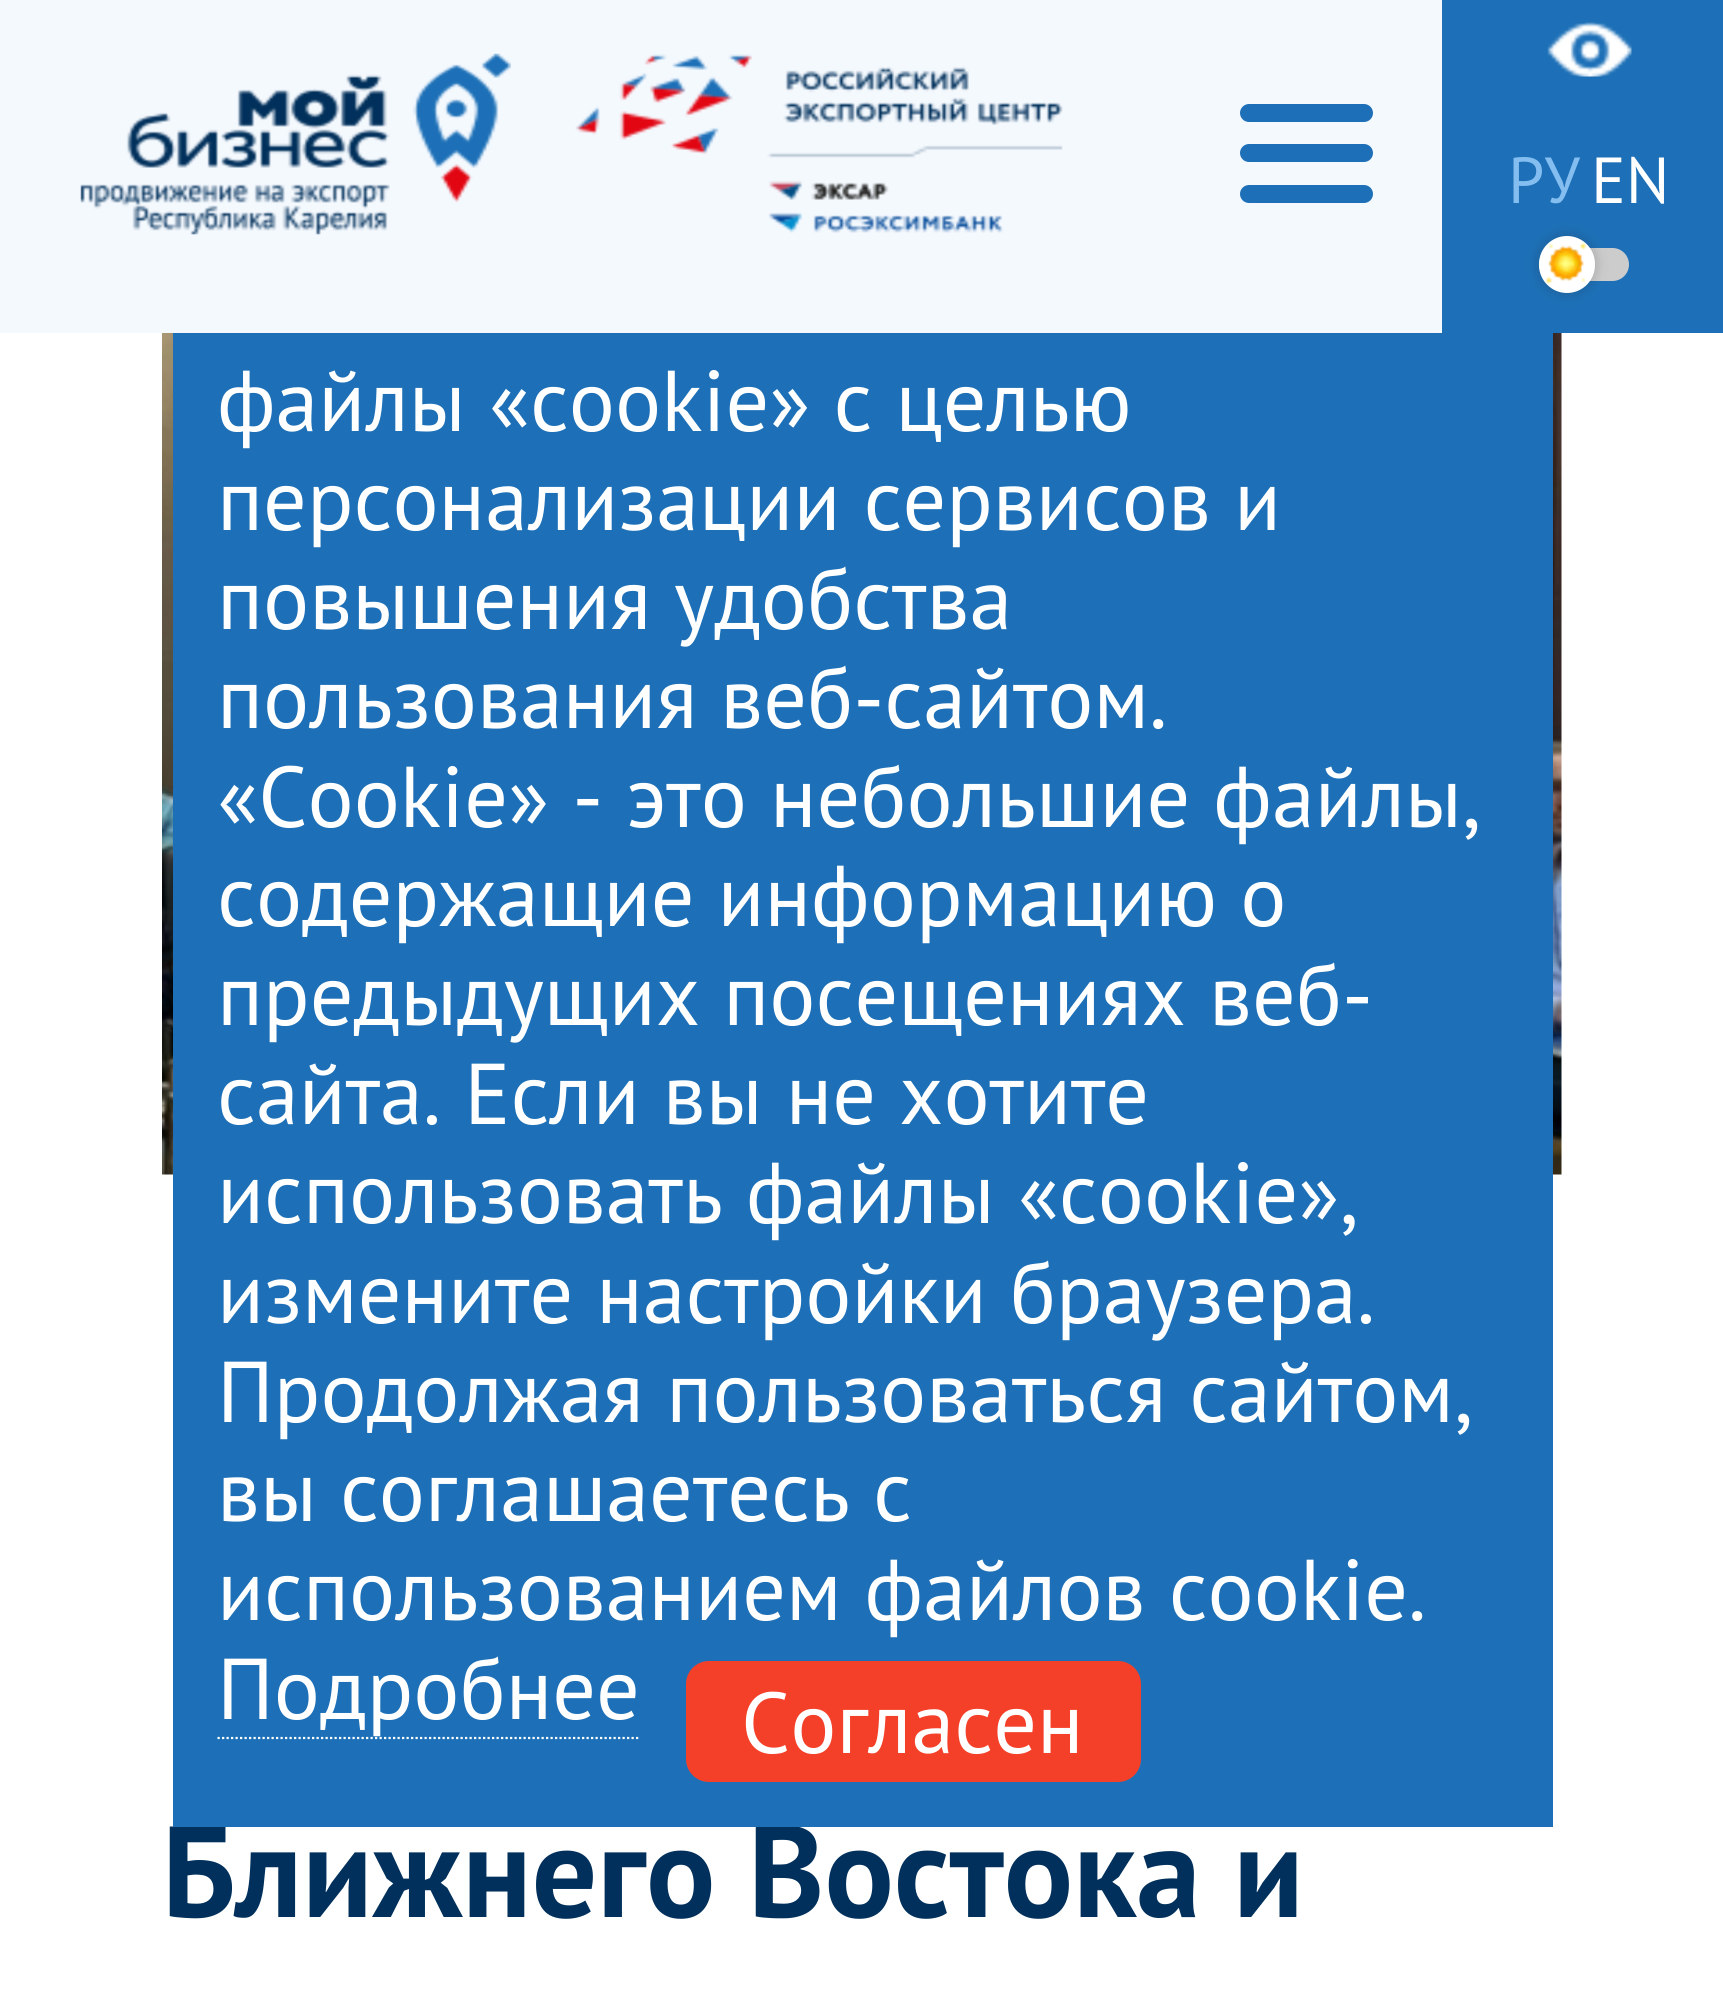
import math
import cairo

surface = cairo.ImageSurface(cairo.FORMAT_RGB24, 1723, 2011)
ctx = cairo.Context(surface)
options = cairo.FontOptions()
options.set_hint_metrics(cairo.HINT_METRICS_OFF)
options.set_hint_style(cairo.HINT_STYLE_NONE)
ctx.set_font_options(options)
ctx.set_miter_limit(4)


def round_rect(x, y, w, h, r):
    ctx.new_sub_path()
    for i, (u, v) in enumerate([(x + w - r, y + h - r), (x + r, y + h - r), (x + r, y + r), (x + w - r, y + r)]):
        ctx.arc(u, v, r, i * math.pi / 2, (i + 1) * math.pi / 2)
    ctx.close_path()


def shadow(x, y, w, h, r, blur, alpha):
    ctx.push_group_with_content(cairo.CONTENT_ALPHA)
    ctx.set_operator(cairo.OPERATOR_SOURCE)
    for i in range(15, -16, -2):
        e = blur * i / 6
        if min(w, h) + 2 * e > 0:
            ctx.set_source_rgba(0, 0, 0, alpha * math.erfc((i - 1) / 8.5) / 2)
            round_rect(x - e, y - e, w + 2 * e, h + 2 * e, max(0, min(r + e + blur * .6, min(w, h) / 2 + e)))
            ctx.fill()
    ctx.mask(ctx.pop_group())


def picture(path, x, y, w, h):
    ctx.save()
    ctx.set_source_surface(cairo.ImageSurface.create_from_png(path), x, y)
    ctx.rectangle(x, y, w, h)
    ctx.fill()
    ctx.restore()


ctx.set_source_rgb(1, 1, 1)
ctx.paint()
ctx.set_source_rgb(0.957, 0.976, 0.996)
ctx.rectangle(0, 0, 1442, 333)
ctx.fill()
picture("img1.png", 80, 53, 431, 182)
picture("img2.png", 575, 54, 488, 179)
ctx.set_source_rgb(0.114, 0.439, 0.718)
round_rect(1240, 104, 133, 18, 9)
ctx.fill()
round_rect(1240, 144, 133, 18, 9)
ctx.fill()
round_rect(1240, 185, 133, 18, 9)
ctx.fill()
ctx.rectangle(1442, 0, 281, 333)
ctx.fill()
picture("img3.png", 1547, 22, 85, 55)
ctx.select_font_face("PT Sans")
ctx.set_font_size(65)
ctx.set_source_rgb(0.518, 0.745, 0.941)
ctx.move_to(1508, 203)
ctx.show_text("РУ")
ctx.set_source_rgb(1, 1, 1)
ctx.move_to(1591, 203)
ctx.show_text("EN")
ctx.set_source_rgb(0.8, 0.8, 0.8)
round_rect(1539, 248, 90, 33, 16.5)
ctx.fill()
ctx.set_source_rgb(0.125, 0.125, 0.125)
shadow(1539, 236, 56, 57, 28, 6.5, 0.24)
ctx.set_source_rgb(1, 1, 1)
round_rect(1539, 236, 56, 57, 28)
ctx.fill()
picture("img4.png", 1545, 242, 42, 42)
picture("img5.png", 162, 333, 1400, 842)
ctx.select_font_face("PT Sans", cairo.FONT_SLANT_NORMAL, cairo.FONT_WEIGHT_BOLD)
ctx.set_font_size(129.25)
ctx.set_source_rgb(0, 0.188, 0.357)
ctx.move_to(162, 1917)
ctx.show_text("Ближнего Востока и")
ctx.set_source_rgb(0.114, 0.439, 0.718)
ctx.rectangle(173, 333, 1380, 1494)
ctx.fill()
ctx.select_font_face("PT Sans")
ctx.set_font_size(86.2)
ctx.set_source_rgb(1, 1, 1)
ctx.move_to(217, 431)
ctx.show_text("файлы «cookie» с целью")
ctx.move_to(217, 530)
ctx.show_text("персонализации сервисов и")
ctx.move_to(217, 629)
ctx.show_text("повышения удобства")
ctx.move_to(217, 728)
ctx.show_text("пользования веб-сайтом.")
ctx.move_to(217, 827)
ctx.show_text("«Cookie» - это небольшие файлы,")
ctx.move_to(217, 926)
ctx.show_text("содержащие информацию о")
ctx.move_to(217, 1025)
ctx.show_text("предыдущих посещениях веб-")
ctx.move_to(217, 1124)
ctx.show_text("сайта. Если вы не хотите")
ctx.move_to(217, 1223)
ctx.show_text("использовать файлы «cookie»,")
ctx.move_to(217, 1323)
ctx.show_text("измените настройки браузера.")
ctx.move_to(217, 1422)
ctx.show_text("Продолжая пользоваться сайтом,")
ctx.move_to(217, 1521)
ctx.show_text("вы соглашаетесь с")
ctx.move_to(217, 1620)
ctx.show_text("использованием файлов cookie.")
ctx.new_path()
ctx.move_to(217.5, 1738)
ctx.line_to(640.5, 1738)
ctx.set_line_width(2.2)
ctx.set_dash([2.25, 2.25])
ctx.stroke()
ctx.move_to(217, 1719)
ctx.show_text("Подробнее")
ctx.set_source_rgb(0.957, 0.251, 0.161)
round_rect(686, 1661, 455, 121, 23)
ctx.fill()
ctx.set_source_rgb(1, 1, 1)
ctx.move_to(741, 1753)
ctx.show_text("Согласен")
surface.write_to_png("page.png")
